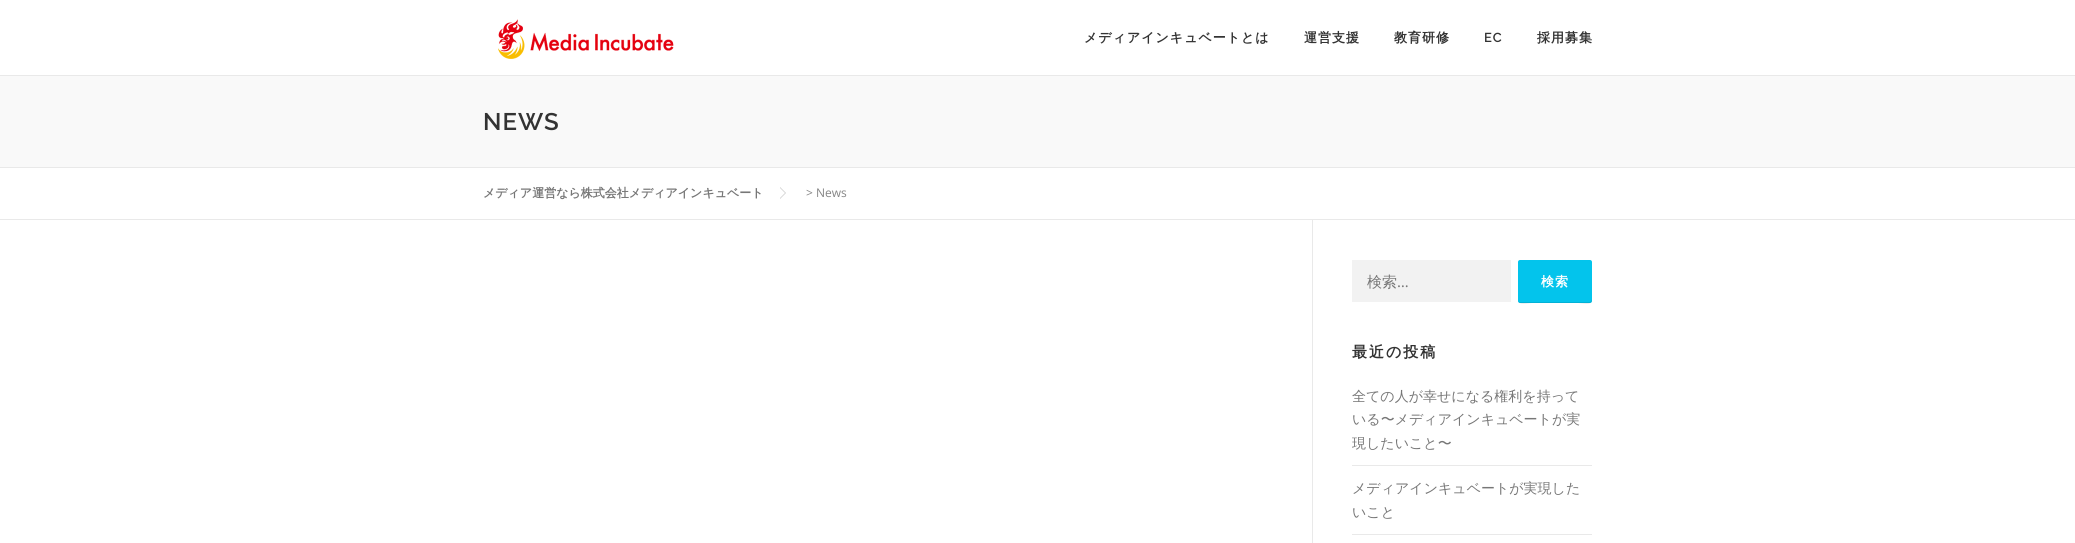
import math
import cairo

surface = cairo.ImageSurface(cairo.FORMAT_RGB24, 2075, 543)
ctx = cairo.Context(surface)
options = cairo.FontOptions()
options.set_hint_metrics(cairo.HINT_METRICS_OFF)
options.set_hint_style(cairo.HINT_STYLE_NONE)
ctx.set_font_options(options)
ctx.set_miter_limit(4)


def spaced_text(x, y, s, letter, word):
    ctx.move_to(x, y)
    for ch in s:
        ctx.show_text(ch)
        ctx.rel_move_to(letter + word * (ch == ' '), 0)


def round_rect(x, y, w, h, r):
    ctx.new_sub_path()
    for i, (u, v) in enumerate([(x + w - r, y + h - r), (x + r, y + h - r), (x + r, y + r), (x + w - r, y + r)]):
        ctx.arc(u, v, r, i * math.pi / 2, (i + 1) * math.pi / 2)
    ctx.close_path()


def picture(path, x, y, w, h):
    ctx.save()
    ctx.set_source_surface(cairo.ImageSurface.create_from_png(path), x, y)
    ctx.rectangle(x, y, w, h)
    ctx.fill()
    ctx.restore()


ctx.set_source_rgb(1, 1, 1)
ctx.paint()
picture("img1.png", 498, 19, 176, 40)
ctx.select_font_face("WenQuanYi Zen Hei", cairo.FONT_SLANT_NORMAL, cairo.FONT_WEIGHT_BOLD)
ctx.set_font_size(13)
ctx.set_source_rgb(0.2, 0.2, 0.2)
spaced_text(1084, 42, "メディアインキュベートとは", 1, 0)
spaced_text(1304, 42, "運営支援", 1, 0)
spaced_text(1394, 42, "教育研修", 1, 0)
ctx.select_font_face("Raleway SemiBold")
spaced_text(1484, 42, "EC", 1, 0)
ctx.select_font_face("WenQuanYi Zen Hei", cairo.FONT_SLANT_NORMAL, cairo.FONT_WEIGHT_BOLD)
spaced_text(1537, 42, "採用募集", 1, 0)
ctx.set_source_rgb(0.973, 0.976, 0.976)
ctx.rectangle(0, 76, 2075, 91)
ctx.fill()
ctx.set_source_rgb(0.914, 0.914, 0.914)
ctx.rectangle(0, 75, 2075, 1)
ctx.fill()
ctx.rectangle(0, 167, 2075, 1)
ctx.fill()
ctx.select_font_face("Raleway SemiBold")
ctx.set_font_size(24)
ctx.set_source_rgb(0.2, 0.2, 0.2)
spaced_text(483, 130, "NEWS", 1, 0)
ctx.set_source_rgb(0.914, 0.914, 0.914)
ctx.rectangle(0, 219, 2075, 1)
ctx.fill()
ctx.select_font_face("WenQuanYi Zen Hei", cairo.FONT_SLANT_NORMAL, cairo.FONT_WEIGHT_BOLD)
ctx.set_font_size(12)
ctx.set_source_rgb(0.467, 0.467, 0.467)
ctx.move_to(483, 197)
ctx.show_text("メディア運営なら株式会社メディアインキュベート")
ctx.set_source_rgb(0.8, 0.8, 0.8)
ctx.new_path()
ctx.move_to(780, 199)
ctx.line_to(780, 187)
ctx.line_to(786, 193)
ctx.close_path()
ctx.fill()
ctx.set_source_rgb(1, 1, 1)
ctx.new_path()
ctx.move_to(780, 198)
ctx.line_to(780, 188)
ctx.line_to(785, 193)
ctx.close_path()
ctx.fill()
ctx.select_font_face("Open Sans")
ctx.set_source_rgb(0.522, 0.522, 0.522)
ctx.move_to(806, 197)
ctx.show_text("> News")
ctx.set_source_rgb(0.914, 0.914, 0.914)
ctx.rectangle(1312, 220, 1, 323)
ctx.fill()
ctx.set_source_rgb(0.949, 0.949, 0.949)
ctx.rectangle(1352, 260, 159, 42)
ctx.fill()
ctx.select_font_face("WenQuanYi Zen Hei Medium")
ctx.set_font_size(15)
ctx.set_source_rgb(0.467, 0.467, 0.467)
ctx.move_to(1367, 287)
ctx.show_text("検索")
ctx.select_font_face("Open Sans")
ctx.move_to(1397, 287)
ctx.show_text("…")
ctx.set_source_rgb(0.012, 0.769, 0.922)
round_rect(1518, 260, 74, 43, 2)
ctx.fill()
ctx.set_source_rgba(0, 0, 0, 0.1)
ctx.new_path()
ctx.move_to(1518, 300)
ctx.curve_to(1518, 306, 1528, 303, 1532, 303)
ctx.line_to(1578, 303)
ctx.curve_to(1582, 303, 1592, 306, 1592, 300)
ctx.line_to(1591, 301)
ctx.line_to(1590, 302)
ctx.line_to(1520, 302)
ctx.curve_to(1519, 302, 1518, 301, 1518, 300)
ctx.close_path()
ctx.fill()
ctx.select_font_face("WenQuanYi Zen Hei", cairo.FONT_SLANT_NORMAL, cairo.FONT_WEIGHT_BOLD)
ctx.set_font_size(13)
ctx.set_source_rgb(1, 1, 1)
spaced_text(1541, 286, "検索", 1, 0)
ctx.set_font_size(15)
ctx.set_source_rgb(0.2, 0.2, 0.2)
spaced_text(1352, 357, "最近の投稿", 2, 0)
ctx.set_source_rgb(0.914, 0.914, 0.914)
ctx.rectangle(1352, 465, 240, 1)
ctx.fill()
ctx.select_font_face("WenQuanYi Zen Hei Medium")
ctx.set_font_size(14)
ctx.set_source_rgb(0.467, 0.467, 0.467)
ctx.move_to(1352, 401)
ctx.show_text("全ての人が幸せになる権利を持って")
ctx.move_to(1352, 424)
ctx.show_text("いる〜メディアインキュベートが実")
ctx.move_to(1352, 448)
ctx.show_text("現したいこと〜")
ctx.set_source_rgb(0.914, 0.914, 0.914)
ctx.rectangle(1352, 534, 240, 1)
ctx.fill()
ctx.set_source_rgb(0.467, 0.467, 0.467)
ctx.move_to(1352, 493)
ctx.show_text("メディアインキュベートが実現した")
ctx.move_to(1352, 517)
ctx.show_text("いこと")
surface.write_to_png("page.png")
